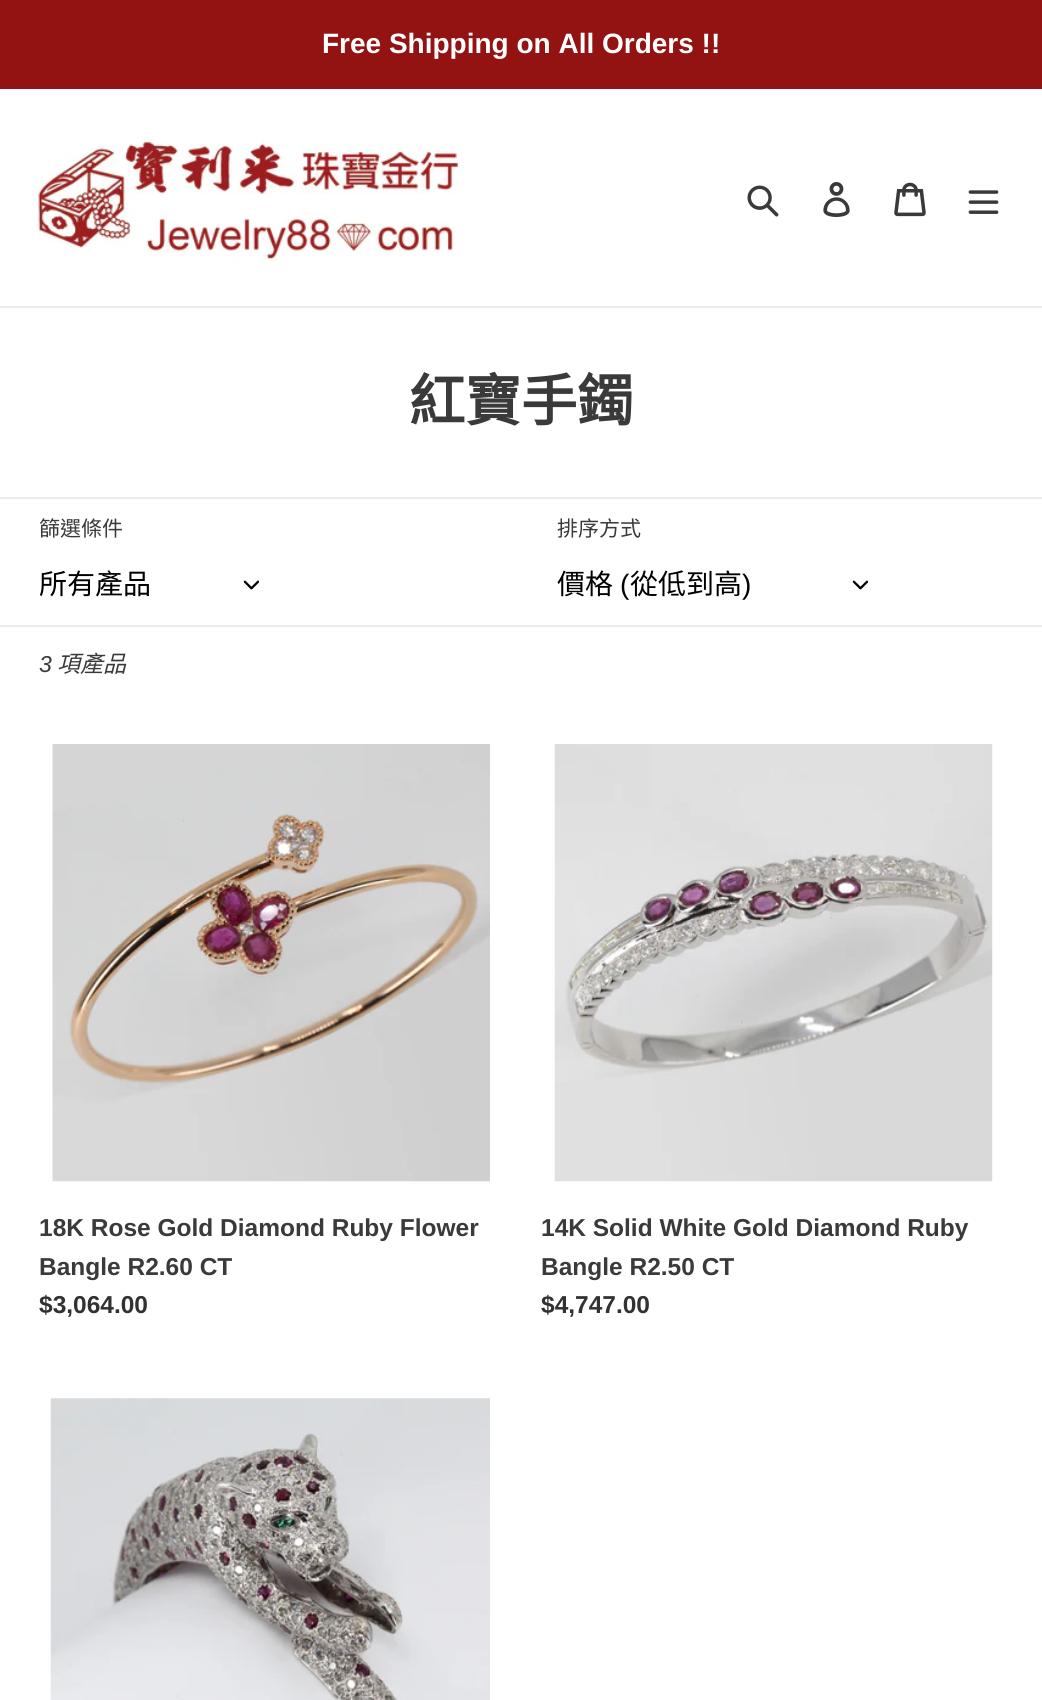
import math
import cairo

surface = cairo.ImageSurface(cairo.FORMAT_RGB24, 1042, 1700)
ctx = cairo.Context(surface)
options = cairo.FontOptions()
options.set_hint_metrics(cairo.HINT_METRICS_OFF)
options.set_hint_style(cairo.HINT_STYLE_NONE)
ctx.set_font_options(options)
ctx.set_miter_limit(4)


def picture(path, x, y, w, h):
    ctx.save()
    ctx.set_source_surface(cairo.ImageSurface.create_from_png(path), x, y)
    ctx.rectangle(x, y, w, h)
    ctx.fill()
    ctx.restore()


ctx.set_source_rgb(1, 1, 1)
ctx.paint()
ctx.set_source_rgb(0.576, 0.078, 0.078)
ctx.rectangle(0, 0, 1042, 89)
ctx.fill()
ctx.select_font_face("Liberation Sans", cairo.FONT_SLANT_NORMAL, cairo.FONT_WEIGHT_BOLD)
ctx.set_font_size(28)
ctx.set_source_rgb(1, 1, 1)
ctx.move_to(322, 53)
ctx.show_text("Free Shipping on All Orders !!")
ctx.set_source_rgb(0.922, 0.922, 0.922)
ctx.rectangle(0, 306, 1042, 2)
ctx.fill()
picture("img1.png", 38, 136, 428, 126)
picture("img2.png", 747, 185, 32, 32)
picture("img3.png", 823, 182, 27, 35)
picture("img4.png", 894, 182, 32, 35)
picture("img5.png", 968, 190, 31, 24)
ctx.select_font_face("Noto Sans CJK TC", cairo.FONT_SLANT_NORMAL, cairo.FONT_WEIGHT_BOLD)
ctx.set_font_size(56)
ctx.set_source_rgb(0.227, 0.227, 0.227)
ctx.move_to(409, 421)
ctx.show_text("紅寶手鐲")
ctx.set_source_rgb(0.922, 0.922, 0.922)
ctx.rectangle(0, 497, 1042, 2)
ctx.fill()
ctx.select_font_face("Noto Sans CJK TC")
ctx.set_font_size(21)
ctx.set_source_rgb(0.227, 0.227, 0.227)
ctx.move_to(39, 536)
ctx.show_text("篩選條件")
ctx.set_font_size(28)
ctx.set_source_rgb(0, 0, 0)
ctx.move_to(39, 594)
ctx.show_text("所有產品")
picture("img6.png", 243, 580, 16, 10)
ctx.set_font_size(21)
ctx.set_source_rgb(0.227, 0.227, 0.227)
ctx.move_to(557, 536)
ctx.show_text("排序方式")
ctx.set_font_size(28)
ctx.set_source_rgb(0, 0, 0)
ctx.move_to(557, 594)
ctx.show_text("價格")
ctx.select_font_face("Liberation Sans")
ctx.move_to(620, 594)
ctx.show_text("(")
ctx.select_font_face("Noto Sans CJK TC")
ctx.move_to(630, 594)
ctx.show_text("從低到高")
ctx.select_font_face("Liberation Sans")
ctx.move_to(742, 594)
ctx.show_text(")")
picture("img6.png", 852, 580, 16, 10)
ctx.set_source_rgb(0.922, 0.922, 0.922)
ctx.rectangle(0, 625, 1042, 2)
ctx.fill()
ctx.select_font_face("Liberation Sans", cairo.FONT_SLANT_ITALIC)
ctx.set_font_size(23)
ctx.set_source_rgb(0.227, 0.227, 0.227)
ctx.move_to(39, 672)
ctx.show_text("3")
ctx.select_font_face("Noto Sans CJK TC", cairo.FONT_SLANT_ITALIC)
ctx.move_to(57, 672)
ctx.show_text("項產品")
picture("img7.png", 52, 744, 438, 438)
ctx.select_font_face("Liberation Sans", cairo.FONT_SLANT_NORMAL, cairo.FONT_WEIGHT_BOLD)
ctx.set_font_size(24.5)
ctx.move_to(39, 1236)
ctx.show_text("18K Rose Gold Diamond Ruby Flower")
ctx.move_to(39, 1275)
ctx.show_text("Bangle R2.60 CT")
ctx.set_source_rgb(0.2, 0.196, 0.196)
ctx.move_to(39, 1313)
ctx.show_text("$3,064.00")
picture("img8.png", 554, 744, 439, 438)
ctx.set_source_rgb(0.227, 0.227, 0.227)
ctx.move_to(541, 1236)
ctx.show_text("14K Solid White Gold Diamond Ruby")
ctx.move_to(541, 1275)
ctx.show_text("Bangle R2.50 CT")
ctx.set_source_rgb(0.2, 0.196, 0.196)
ctx.move_to(541, 1313)
ctx.show_text("$4,747.00")
picture("img9.png", 50, 1398, 440, 302)
surface.write_to_png("page.png")
